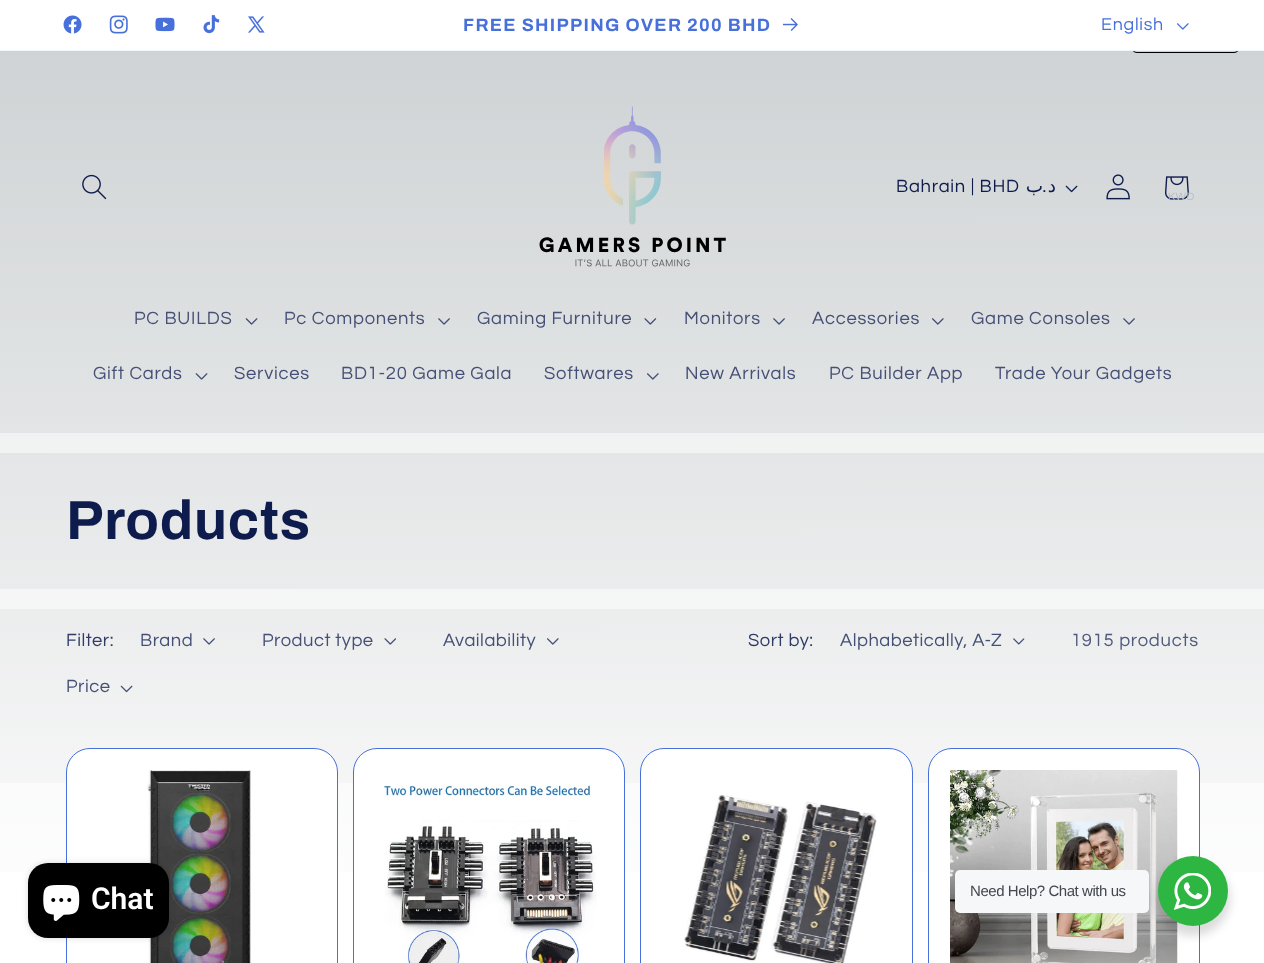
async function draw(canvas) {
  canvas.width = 1264;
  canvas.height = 963;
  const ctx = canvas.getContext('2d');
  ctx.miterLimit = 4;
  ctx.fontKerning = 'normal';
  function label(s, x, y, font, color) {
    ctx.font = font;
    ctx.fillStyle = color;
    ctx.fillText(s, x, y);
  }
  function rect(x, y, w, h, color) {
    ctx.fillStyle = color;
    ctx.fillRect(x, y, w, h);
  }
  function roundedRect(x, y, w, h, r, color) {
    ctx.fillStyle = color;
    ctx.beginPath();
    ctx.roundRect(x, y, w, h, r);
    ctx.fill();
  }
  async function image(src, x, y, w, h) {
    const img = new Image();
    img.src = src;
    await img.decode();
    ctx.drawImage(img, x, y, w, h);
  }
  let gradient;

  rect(0, 0, 1264, 963, '#fff');
  gradient = ctx.createLinearGradient(632, 0, 633, 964);
  gradient.addColorStop(0.04, '#52daec');
  gradient.addColorStop(0.04, '#e6e8e9');
  gradient.addColorStop(1, '#fff');
  gradient.addColorStop(1, '#e79e76');
  ctx.fillStyle = gradient;
  ctx.fillRect(0, 51, 1264, 821);
  gradient = ctx.createLinearGradient(632, 0, 633, 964);
  gradient.addColorStop(0.04, '#52daec');
  gradient.addColorStop(0.04, '#12262e1c');
  gradient.addColorStop(1, '#12262e00');
  gradient.addColorStop(1, '#e79e7600');
  gradient.addColorStop(1, '#e79e76');
  ctx.fillStyle = gradient;
  ctx.fillRect(0, 51, 1264, 382);
  ctx.beginPath();
  ctx.roundRect(1131.5, 8.5, 108, 44, 5.5);
  ctx.strokeStyle = '#000';
  ctx.stroke();
  rect(1131, 8, 109, 42, '#fff');
  rect(0, 50, 1264, 1, '#f0f4fc');
  await image('assets/img1.png', 63, 15, 19, 19);
  await image('assets/img2.png', 109, 15, 19, 19);
  await image('assets/img3.png', 155, 17, 20, 15);
  await image('assets/img4.png', 203, 15, 17, 19);
  await image('assets/img5.png', 248, 16, 17, 17);
  ctx.letterSpacing = '1.3px';
  label('FREE SHIPPING OVER 200 BHD', 463, 31, 'bold 17.9px Archivo', '#4770db');
  await image('assets/img6.png', 783, 18, 15, 13);
  ctx.letterSpacing = '0.75px';
  label('English', 1101, 30, '17.9px Questrial', '#4770db');
  await image('assets/img7.png', 1176, 23, 13, 7);
  await image('assets/img8.png', 82, 174, 25, 26);
  await image('assets/img9.png', 539, 106, 187, 161);
  label('Bahrain | BHD', 896, 192, '18.4px Questrial', '#0e1b4d');
  ctx.direction = 'rtl';
  label('ب', 1043, 192, '18.4px DejaVu Sans', '#0e1b4d');
  label('.', 1047, 192, '18.4px Questrial', '#0e1b4d');
  label('د', 1056, 192, '18.4px DejaVu Sans', '#0e1b4d');
  await image('assets/img10.png', 1065, 185, 13, 8);
  await image('assets/img11.png', 1106, 174, 24, 26);
  await image('assets/img12.png', 1165, 176, 24, 24);
  ctx.letterSpacing = '0.5px';
  ctx.direction = 'ltr';
  label('KWD', 1168, 200, '11px Questrial', '#b7bcc5');
  ctx.letterSpacing = '0.75px';
  label('PC BUILDS', 134, 324, '18.4px Questrial', '#465076');
  await image('assets/img13.png', 245, 318, 13, 7);
  label('Pc Components', 284, 324, '18.4px Questrial', '#465076');
  await image('assets/img14.png', 438, 318, 12, 7);
  label('Gaming Furniture', 477, 324, '18.4px Questrial', '#465076');
  await image('assets/img15.png', 644, 318, 13, 7);
  label('Monitors', 684, 324, '18.4px Questrial', '#465076');
  await image('assets/img14.png', 773, 318, 12, 7);
  label('Accessories', 812, 324, '18.4px Questrial', '#465076');
  await image('assets/img16.png', 932, 318, 12, 7);
  label('Game Consoles', 971, 324, '18.4px Questrial', '#465076');
  await image('assets/img17.png', 1123, 318, 12, 7);
  label('Gift Cards', 93, 379, '18.4px Questrial', '#465076');
  await image('assets/img18.png', 195, 373, 13, 7);
  label('Services', 234, 379, '18.4px Questrial', '#465076');
  label('BD1-20 Game Gala', 341, 379, '18.4px Questrial', '#465076');
  label('Softwares', 544, 379, '18.4px Questrial', '#465076');
  await image('assets/img19.png', 647, 373, 12, 7);
  label('New Arrivals', 685, 379, '18.4px Questrial', '#465076');
  label('PC Builder App', 829, 379, '18.4px Questrial', '#465076');
  label('Trade Your Gadgets', 995, 379, '18.4px Questrial', '#465076');
  gradient = ctx.createLinearGradient(632, 0, 633, 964);
  gradient.addColorStop(0.04, '#52daec');
  gradient.addColorStop(0.04, '#12262e1c');
  gradient.addColorStop(1, '#12262e00');
  gradient.addColorStop(1, '#e79e7600');
  gradient.addColorStop(1, '#e79e76');
  ctx.fillStyle = gradient;
  ctx.fillRect(0, 453, 1264, 136);
  label('Products', 66, 539, 'bold 55px Archivo', '#0e1b4d');
  gradient = ctx.createLinearGradient(632, 0, 633, 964);
  gradient.addColorStop(0.04, '#52daec');
  gradient.addColorStop(0.04, '#12262e1c');
  gradient.addColorStop(1, '#12262e00');
  gradient.addColorStop(1, '#e79e7600');
  gradient.addColorStop(1, '#e79e76');
  ctx.fillStyle = gradient;
  ctx.fillRect(0, 609, 1264, 174);
  ctx.letterSpacing = '0.5px';
  label('Filter:', 66, 646, '18.4px Questrial', '#303b65');
  label('Brand', 140, 646, '18.4px Questrial', '#465076');
  await image('assets/img20.png', 203, 638, 12, 7);
  label('Product type', 262, 646, '18.4px Questrial', '#465076');
  await image('assets/img21.png', 384, 638, 12, 7);
  label('Availability', 443, 646, '18.4px Questrial', '#465076');
  await image('assets/img22.png', 547, 638, 12, 7);
  label('Price', 66, 692, '18.4px Questrial', '#465076');
  await image('assets/img23.png', 120, 685, 13, 8);
  label('Sort by:', 748, 646, '18.4px Questrial', '#303b65');
  label('Alphabetically, A-Z', 840, 646, '18.4px Questrial', '#465076');
  await image('assets/img24.png', 1013, 638, 12, 7);
  ctx.letterSpacing = '0.75px';
  label('1915 products', 1071, 646, '18.4px Questrial', '#515a7e');
  ctx.fillStyle = '#fff';
  ctx.beginPath();
  ctx.roundRect(66.5, 748.5, 271, 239, 23.5);
  ctx.fill();
  ctx.strokeStyle = '#4770db';
  ctx.stroke();
  await image('assets/img25.png', 147, 770, 104, 193);
  ctx.beginPath();
  ctx.roundRect(353.5, 748.5, 271, 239, 23.5);
  ctx.fill();
  ctx.stroke();
  await image('assets/img26.png', 384, 785, 213, 178);
  ctx.beginPath();
  ctx.roundRect(640.5, 748.5, 272, 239, 23.5);
  ctx.fill();
  ctx.stroke();
  await image('assets/img27.png', 684, 795, 193, 168);
  ctx.beginPath();
  ctx.roundRect(928.5, 748.5, 271, 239, 23.5);
  ctx.fill();
  ctx.stroke();
  await image('assets/img28.png', 950, 770, 228, 193);
  ctx.fillStyle = '#00000026';
  ctx.filter = 'blur(3px)';
  ctx.beginPath();
  ctx.roundRect(28, 863, 141, 75, 20);
  ctx.fill();
  ctx.filter = 'none';
  roundedRect(28, 863, 141, 75, 20, '#000');
  await image('assets/img29.png', 43, 885, 37, 36);
  ctx.letterSpacing = '0px';
  label('Chat', 91, 909, '600 30px Roboto', '#fff');
  ctx.fillStyle = '#00000024';
  ctx.filter = 'blur(5px)';
  ctx.beginPath();
  ctx.roundRect(1155, 861, 75, 75, 37.5);
  ctx.fill();
  ctx.filter = 'none';
  roundedRect(955, 870, 194, 43, 5, '#f5f7f9');
  ctx.letterSpacing = '-0.45px';
  label('Need Help? Chat with us', 970, 896, '15px Liberation Sans', '#43474e');
  ctx.fillStyle = '#2db742';
  ctx.beginPath();
  ctx.arc(1193, 891, 35, 0, 2 * Math.PI);
  ctx.fill();
  await image('assets/img30.png', 1174, 873, 37, 37);
}

draw(document.querySelector('canvas'));
